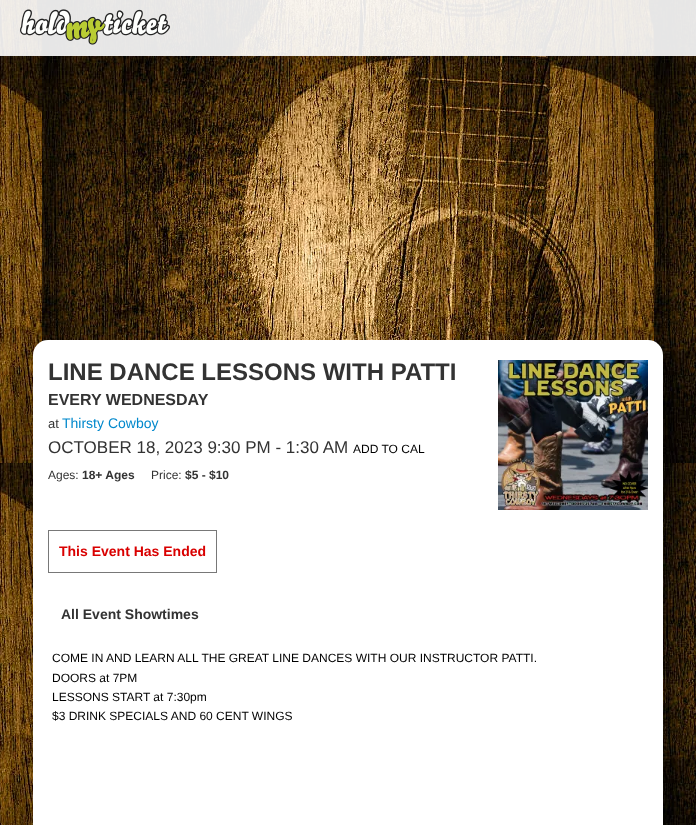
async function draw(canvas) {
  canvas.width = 696;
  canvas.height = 825;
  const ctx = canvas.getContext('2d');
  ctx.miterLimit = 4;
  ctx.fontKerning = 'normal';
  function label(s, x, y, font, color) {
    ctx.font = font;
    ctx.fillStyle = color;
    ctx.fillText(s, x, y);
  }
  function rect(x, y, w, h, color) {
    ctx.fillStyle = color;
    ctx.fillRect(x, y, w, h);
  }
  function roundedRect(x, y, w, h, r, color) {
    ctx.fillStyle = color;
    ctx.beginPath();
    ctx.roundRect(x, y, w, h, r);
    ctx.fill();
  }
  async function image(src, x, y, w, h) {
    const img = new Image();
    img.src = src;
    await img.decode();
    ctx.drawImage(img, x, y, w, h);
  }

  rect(0, 0, 696, 825, '#fff');
  await image('assets/img1.png', 0, 0, 696, 825);
  rect(0, 0, 696, 56, '#ffffffe6');
  await image('assets/img2.png', 20, 9, 150, 36);
  roundedRect(33, 340, 630, 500, 15, '#fff');
  label('LINE DANCE LESSONS WITH PATTI', 48, 380, 'bold 24px Liberation Sans', '#333');
  label('EVERY WEDNESDAY', 48, 405, 'bold 16px Liberation Sans', '#333');
  label('at', 48, 428, '13px Liberation Sans', '#333');
  label('Thirsty Cowboy', 62, 428, '14px Liberation Sans', '#08c');
  label('OCTOBER 18, 2023 9:30 PM - 1:30 AM', 48, 453, '17px Liberation Sans', '#333');
  label('ADD TO CAL', 353, 453, '12px Liberation Sans', '#000');
  label('Ages:', 48, 479, '12px Liberation Sans', '#333');
  label('18+ Ages', 82, 479, 'bold 12px Liberation Sans', '#333');
  label('Price:', 151, 479, '12px Liberation Sans', '#333');
  label('$5 - $10', 185, 479, 'bold 12px Liberation Sans', '#333');
  await image('assets/img3.png', 498, 360, 150, 150);
  ctx.strokeStyle = '#787878';
  ctx.strokeRect(48.5, 530.5, 168, 42);
  label('This Event Has Ended', 59, 556, 'bold 14px Liberation Sans', '#d90000');
  label('All Event Showtimes', 61, 619, 'bold 14px Liberation Sans', '#333');
  label('COME IN AND LEARN ALL THE GREAT LINE DANCES WITH OUR INSTRUCTOR PATTI.', 52, 662, '12px Liberation Sans', '#000');
  label('DOORS at 7PM', 52, 682, '12px Liberation Sans', '#000');
  label('LESSONS START at 7:30pm', 52, 701, '12px Liberation Sans', '#000');
  label('$3 DRINK SPECIALS AND 60 CENT WINGS', 52, 720, '12px Liberation Sans', '#000');
}

draw(document.querySelector('canvas'));
